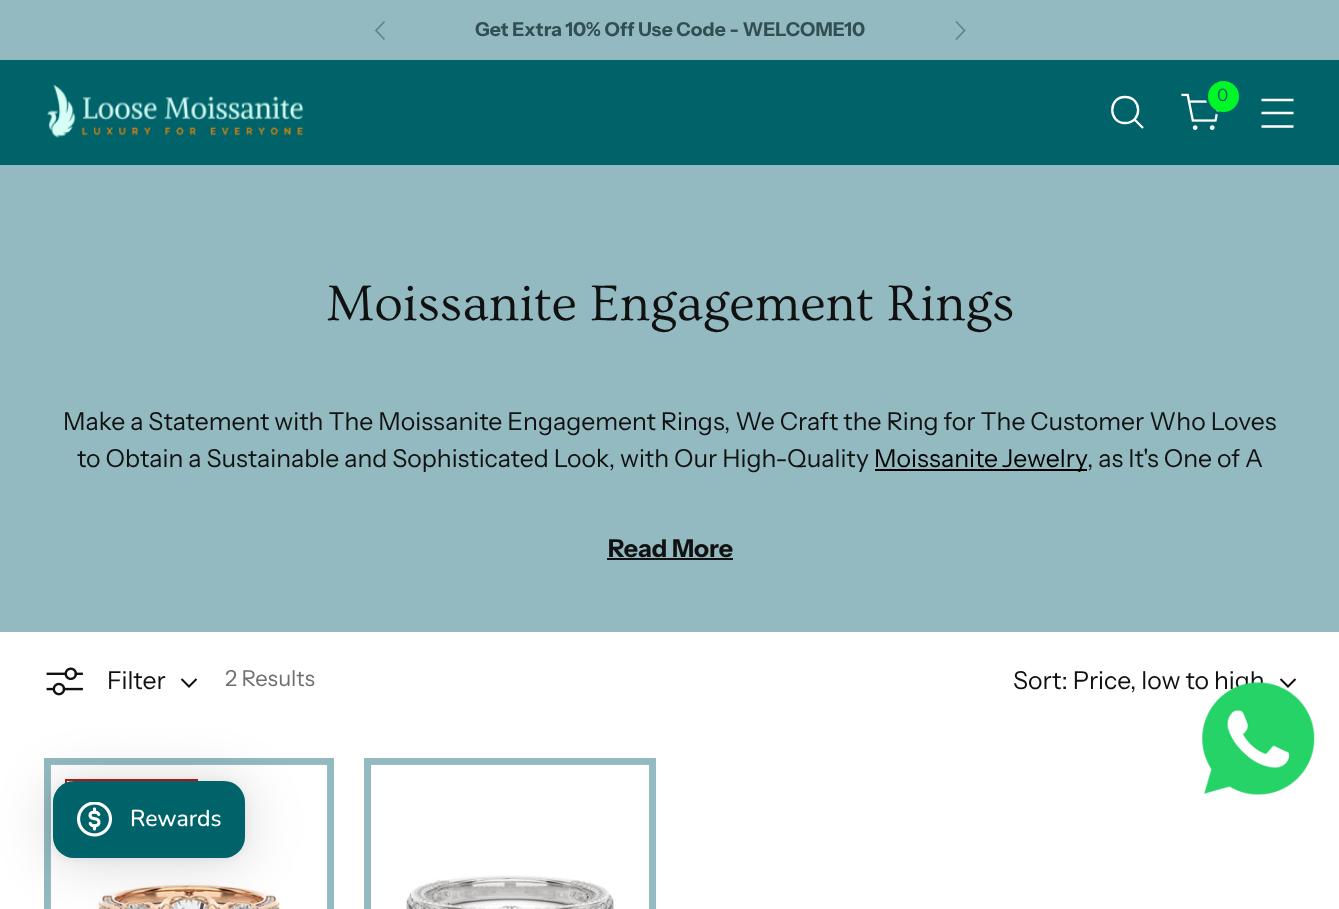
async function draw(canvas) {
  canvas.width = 1339;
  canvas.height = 909;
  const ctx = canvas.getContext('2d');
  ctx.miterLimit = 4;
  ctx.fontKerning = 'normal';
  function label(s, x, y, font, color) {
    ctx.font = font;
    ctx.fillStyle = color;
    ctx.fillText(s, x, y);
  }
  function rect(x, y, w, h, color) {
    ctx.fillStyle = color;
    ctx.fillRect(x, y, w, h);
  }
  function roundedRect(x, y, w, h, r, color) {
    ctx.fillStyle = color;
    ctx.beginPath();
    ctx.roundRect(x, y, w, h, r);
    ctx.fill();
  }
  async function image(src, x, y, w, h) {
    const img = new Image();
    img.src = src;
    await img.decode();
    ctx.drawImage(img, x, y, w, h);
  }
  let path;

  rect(0, 0, 1339, 909, '#fff');
  rect(0, 0, 1339, 60, '#92bac0');
  path = new Path2D('M384.5 21.5L376 30.5L384.5 39.5');
  ctx.strokeStyle = '#62848a';
  ctx.lineWidth = 1.8;
  ctx.stroke(path);
  path = new Path2D('M956 39.5L964.5 30.5L956 21.5');
  ctx.stroke(path);
  label('Get Extra 10% Off Use Code - WELCOME10', 475, 36, 'bold 19.25px Instrument Sans', '#314e53');
  rect(0, 60, 1339, 105, '#006369');
  await image('assets/img1.png', 47, 84, 257, 54);
  path = new Path2D('M1125 123C1142.5 123 1142.5 97 1125 97C1108 97 1108 123 1125 123Z');
  ctx.strokeStyle = '#fff';
  ctx.lineWidth = 2.3;
  ctx.lineCap = 'round';
  ctx.stroke(path);
  path = new Path2D('M1134.5 119.5L1143 128');
  ctx.lineCap = 'butt';
  ctx.stroke(path);
  await image('assets/img2.png', 1181, 93, 38, 37);
  ctx.beginPath();
  ctx.arc(1224.5, 97.5, 17, 0, 2 * Math.PI);
  ctx.strokeStyle = '#006369';
  ctx.lineWidth = 3;
  ctx.stroke();
  ctx.fillStyle = '#00f727';
  ctx.beginPath();
  ctx.arc(1223.5, 96.5, 15.5, 0, 2 * Math.PI);
  ctx.fill();
  label('0', 1217, 101, '17px Instrument Sans', '#006369');
  path = new Path2D('M1261.5 113H1293.5M1261.5 100H1293.5M1261.5 126.5H1293.5');
  ctx.strokeStyle = '#fff';
  ctx.lineWidth = 2.3;
  ctx.stroke(path);
  rect(0, 165, 1339, 467, '#92bac0');
  label('Moissanite Engagement Rings', 326, 320, '52.25px Ovo', '#111');
  label('Make a Statement with The Moissanite Engagement Rings, We Craft the Ring for The Customer Who Loves', 63, 430, '24.8px Instrument Sans', '#111');
  label('to Obtain a Sustainable and Sophisticated Look, with Our High-Quality', 77, 467, '24.8px Instrument Sans', '#111');
  rect(875, 469, 212, 2, '#000');
  ctx.wordSpacing = '-1px';
  label('Moissanite Jewelry', 874, 467, '24.8px Instrument Sans', '#000');
  ctx.wordSpacing = '0px';
  label(', as It\'s One of A', 1087, 467, '24.8px Instrument Sans', '#111');
  label('Read More', 608, 557, 'bold 24.8px Instrument Sans', '#111');
  rect(607, 558, 126, 2, '#111');
  await image('assets/img3.png', 46, 667, 37, 29);
  label('Filter', 107, 689, '24.8px Instrument Sans', '#111');
  path = new Path2D('M181.5 679L189 686.5L196.5 679');
  ctx.strokeStyle = '#111';
  ctx.lineWidth = 2;
  ctx.stroke(path);
  label('2 Results', 225, 686, '22px Instrument Sans', '#707070');
  label('Sort: Price, low to high', 1013, 689, '24.8px Instrument Sans', '#111');
  path = new Path2D('M1280.5 679L1288 686.5L1295.5 679');
  ctx.stroke(path);
  ctx.strokeStyle = '#92bac0';
  ctx.lineWidth = 7;
  ctx.strokeRect(47.5, 761.5, 283, 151);
  await image('assets/img4.png', 50, 764, 278, 145);
  ctx.strokeStyle = '#c31818';
  ctx.lineWidth = 2;
  ctx.strokeRect(66, 780, 131, 28);
  ctx.strokeStyle = '#92bac0';
  ctx.lineWidth = 7;
  ctx.strokeRect(367.5, 761.5, 285, 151);
  await image('assets/img5.png', 371, 764, 279, 145);
  await image('assets/img6.png', 1202, 682, 113, 113);
  ctx.fillStyle = '#00000029';
  ctx.filter = 'blur(28px)';
  ctx.beginPath();
  ctx.roundRect(53, 784, 192, 77, 21);
  ctx.fill();
  ctx.filter = 'none';
  ctx.fillStyle = '#0000000f';
  ctx.filter = 'blur(5px)';
  ctx.beginPath();
  ctx.roundRect(53, 782, 192, 77, 21);
  ctx.fill();
  ctx.filter = 'none';
  roundedRect(53, 781, 192, 77, 21, '#006369');
  await image('assets/img7.png', 77, 802, 35, 35);
  label('Rewards', 130, 826, '500 23px Nunito', '#fff');
}

draw(document.querySelector('canvas'));
